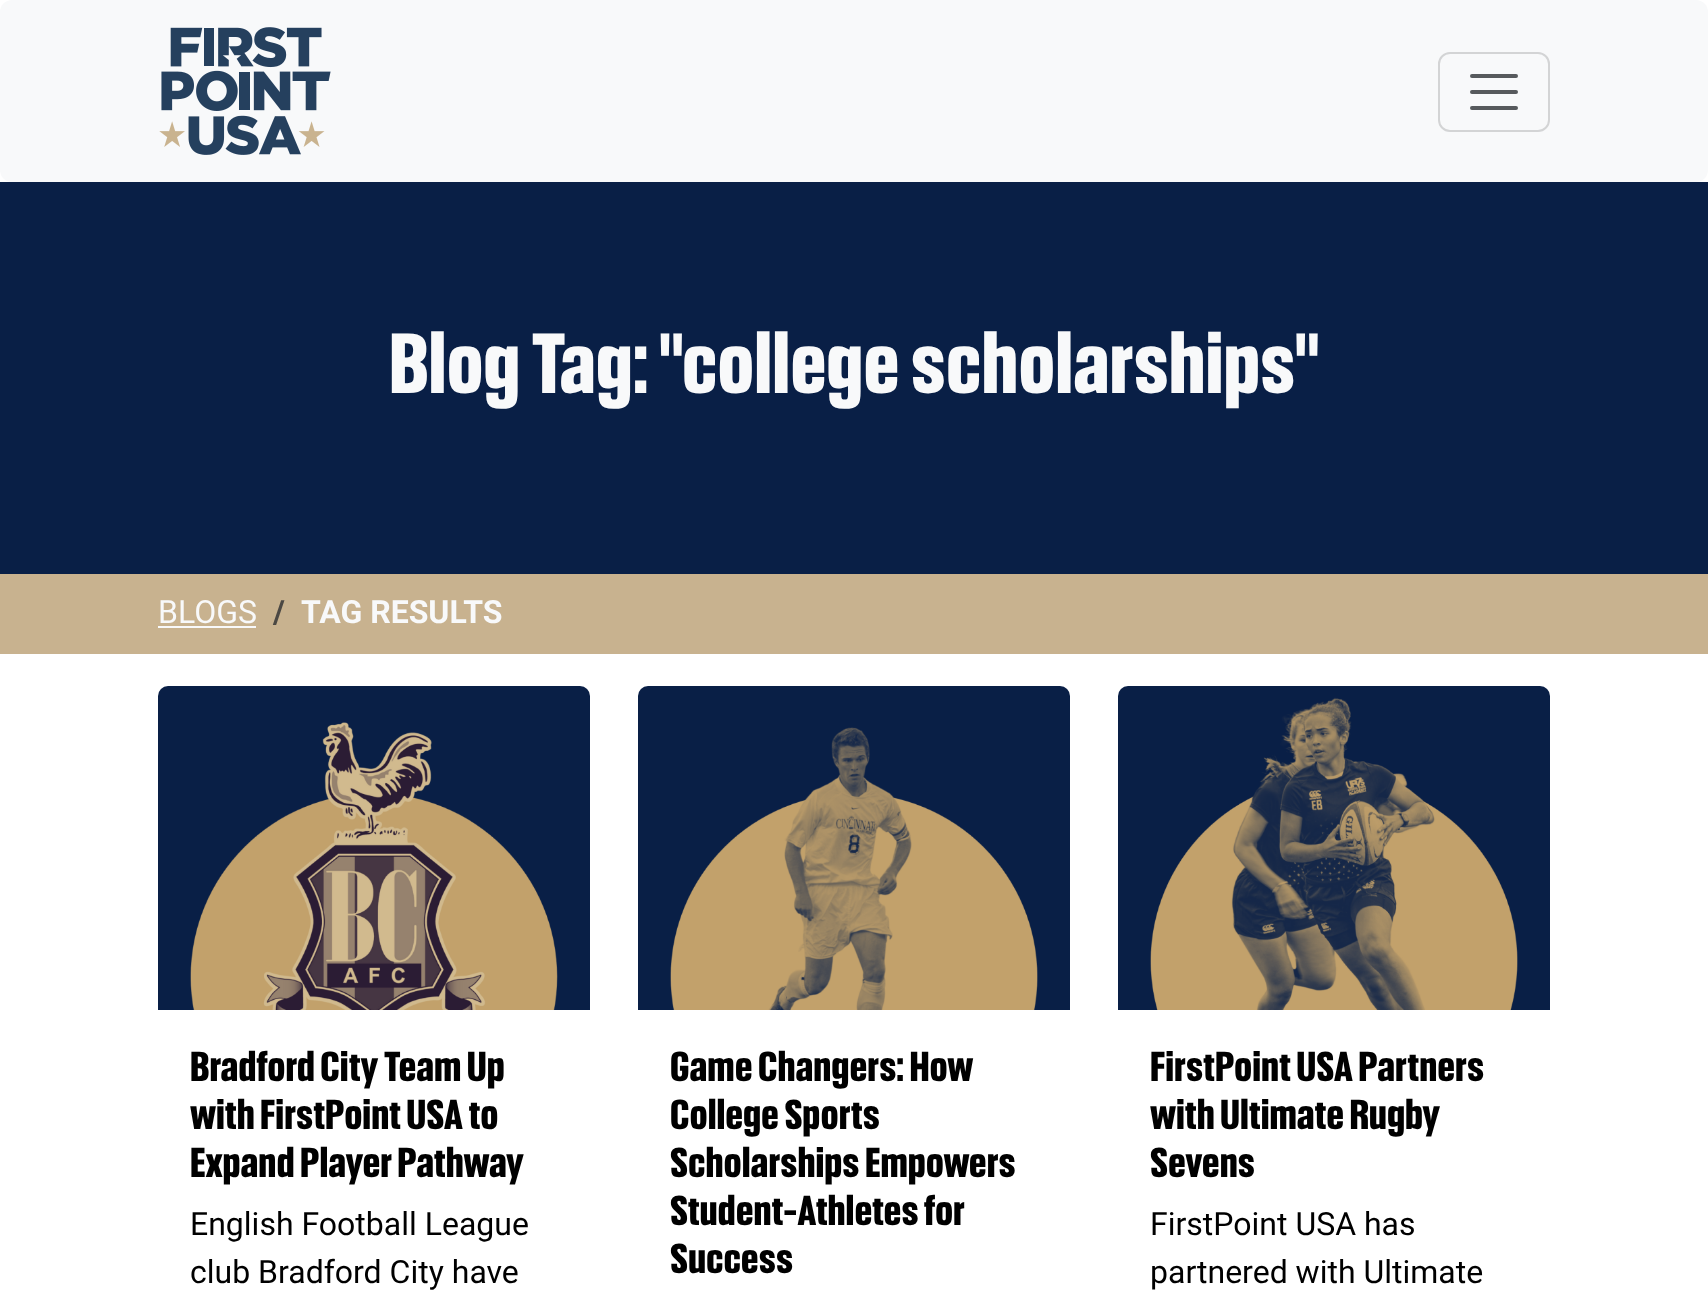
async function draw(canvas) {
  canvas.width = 1708;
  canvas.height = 1303;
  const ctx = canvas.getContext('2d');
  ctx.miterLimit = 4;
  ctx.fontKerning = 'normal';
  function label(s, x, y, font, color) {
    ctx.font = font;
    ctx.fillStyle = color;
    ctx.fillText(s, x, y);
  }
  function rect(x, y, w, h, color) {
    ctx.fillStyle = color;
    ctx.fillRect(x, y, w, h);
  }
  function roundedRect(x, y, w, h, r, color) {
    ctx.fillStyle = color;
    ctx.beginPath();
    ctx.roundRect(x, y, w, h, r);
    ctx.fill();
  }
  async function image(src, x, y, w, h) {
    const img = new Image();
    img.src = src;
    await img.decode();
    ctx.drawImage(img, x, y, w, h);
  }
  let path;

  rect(0, 0, 1708, 1303, '#fff');
  roundedRect(0, 0, 1708, 182, 12, '#f8f9fa');
  await image('assets/img1.png', 159, 27, 172, 128);
  ctx.beginPath();
  ctx.roundRect(1439, 53, 110, 78, 11);
  ctx.strokeStyle = '#d3d4d5';
  ctx.lineWidth = 2;
  ctx.stroke();
  path = new Path2D('M1472 76H1516M1472 92H1516M1472 108H1516');
  ctx.strokeStyle = '#575a5d';
  ctx.lineWidth = 4;
  ctx.lineCap = 'round';
  ctx.stroke(path);
  rect(0, 182, 1708, 392, '#091f46');
  label('Blog Tag: "college scholarships"', 389, 393, 'bold 81.5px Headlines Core', '#f8f9fa');
  rect(0, 574, 1708, 80, '#c8b28f');
  label('BLOGS', 158, 623, '32px Roboto', '#f8f9fa');
  rect(158, 626, 98, 2, '#f8f9fa');
  label('/', 273, 623, 'bold 32px Roboto', '#4b4843');
  label('TAG RESULTS', 301, 623, 'bold 32px Roboto', '#f8f9fa');
  await image('assets/img2.png', 158, 686, 432, 324);
  label('Bradford City Team Up', 190, 1081, 'bold 40px Headlines Core', '#000');
  label('with FirstPoint USA to', 190, 1129, 'bold 40px Headlines Core', '#000');
  label('Expand Player Pathway', 190, 1177, 'bold 40px Headlines Core', '#000');
  label('English Football League', 190, 1235, '32px Roboto', '#000');
  label('club Bradford City have', 190, 1283, '32px Roboto', '#000');
  await image('assets/img3.png', 638, 686, 432, 324);
  label('Game Changers: How', 670, 1081, 'bold 40px Headlines Core', '#000');
  label('College Sports', 670, 1129, 'bold 40px Headlines Core', '#000');
  label('Scholarships Empowers', 670, 1177, 'bold 40px Headlines Core', '#000');
  label('Student-Athletes for', 670, 1225, 'bold 40px Headlines Core', '#000');
  label('Success', 670, 1273, 'bold 40px Headlines Core', '#000');
  await image('assets/img4.png', 1118, 686, 432, 324);
  label('FirstPoint USA Partners', 1150, 1081, 'bold 40px Headlines Core', '#000');
  label('with Ultimate Rugby', 1150, 1129, 'bold 40px Headlines Core', '#000');
  label('Sevens', 1150, 1177, 'bold 40px Headlines Core', '#000');
  label('FirstPoint USA has', 1150, 1235, '32px Roboto', '#000');
  label('partnered with Ultimate', 1150, 1283, '32px Roboto', '#000');
}

draw(document.querySelector('canvas'));
